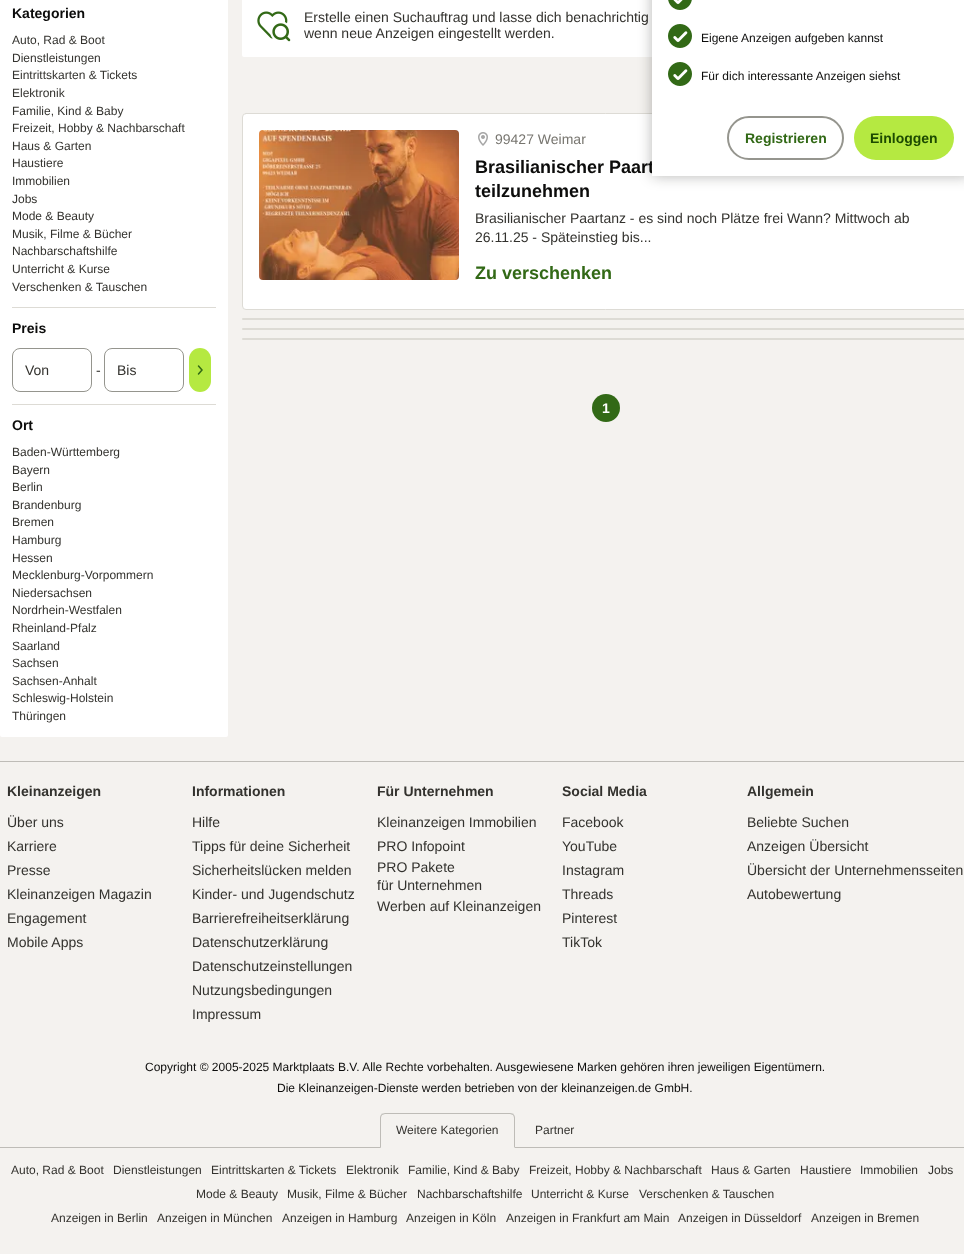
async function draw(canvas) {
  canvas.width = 964;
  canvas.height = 1254;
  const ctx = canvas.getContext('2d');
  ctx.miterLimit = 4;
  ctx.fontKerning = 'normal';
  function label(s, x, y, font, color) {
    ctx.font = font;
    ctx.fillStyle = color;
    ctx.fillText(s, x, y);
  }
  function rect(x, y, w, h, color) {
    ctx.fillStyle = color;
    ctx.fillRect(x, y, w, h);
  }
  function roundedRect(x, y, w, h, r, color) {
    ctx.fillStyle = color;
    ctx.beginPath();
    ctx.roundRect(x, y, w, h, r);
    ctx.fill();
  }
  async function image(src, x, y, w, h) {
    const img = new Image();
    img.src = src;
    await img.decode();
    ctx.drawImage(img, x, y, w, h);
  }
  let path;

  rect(0, 0, 964, 1254, '#f4f2ef');
  roundedRect(0, -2, 228, 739, 2, '#fff');
  label('Kategorien', 12, 18, 'bold 14px Liberation Sans', '#0c0c0b');
  label('Auto, Rad & Boot', 12, 44, '12px Liberation Sans', '#33322e');
  label('Dienstleistungen', 12, 62, '12px Liberation Sans', '#33322e');
  label('Eintrittskarten & Tickets', 12, 79, '12px Liberation Sans', '#33322e');
  label('Elektronik', 12, 97, '12px Liberation Sans', '#33322e');
  label('Familie, Kind & Baby', 12, 115, '12px Liberation Sans', '#33322e');
  label('Freizeit, Hobby & Nachbarschaft', 12, 132, '12px Liberation Sans', '#33322e');
  label('Haus & Garten', 12, 150, '12px Liberation Sans', '#33322e');
  label('Haustiere', 12, 167, '12px Liberation Sans', '#33322e');
  label('Immobilien', 12, 185, '12px Liberation Sans', '#33322e');
  label('Jobs', 12, 203, '12px Liberation Sans', '#33322e');
  label('Mode & Beauty', 12, 220, '12px Liberation Sans', '#33322e');
  label('Musik, Filme & Bücher', 12, 238, '12px Liberation Sans', '#33322e');
  label('Nachbarschaftshilfe', 12, 255, '12px Liberation Sans', '#33322e');
  label('Unterricht & Kurse', 12, 273, '12px Liberation Sans', '#33322e');
  label('Verschenken & Tauschen', 12, 291, '12px Liberation Sans', '#33322e');
  rect(12, 307, 204, 1, '#dddbd5');
  label('Preis', 12, 333, 'bold 14px Liberation Sans', '#0c0c0b');
  ctx.beginPath();
  ctx.roundRect(12.5, 348.5, 79, 43, 7.5);
  ctx.strokeStyle = '#95958e';
  ctx.stroke();
  label('Von', 25, 375, '14px Liberation Sans', '#33322e');
  label('-', 96, 375, '14px Liberation Sans', '#33322e');
  ctx.beginPath();
  ctx.roundRect(104.5, 348.5, 79, 43, 7.5);
  ctx.stroke();
  label('Bis', 117, 375, '14px Liberation Sans', '#33322e');
  roundedRect(189, 348, 22, 44, 11, '#b5e941');
  path = new Path2D('M198.5 366L202 370L198.5 374');
  ctx.strokeStyle = '#326916';
  ctx.lineWidth = 1.5;
  ctx.lineCap = 'round';
  ctx.stroke(path);
  rect(12, 404, 204, 1, '#dddbd5');
  label('Ort', 12, 430, 'bold 14px Liberation Sans', '#0c0c0b');
  label('Baden-Württemberg', 12, 456, '12px Liberation Sans', '#33322e');
  label('Bayern', 12, 474, '12px Liberation Sans', '#33322e');
  label('Berlin', 12, 491, '12px Liberation Sans', '#33322e');
  label('Brandenburg', 12, 509, '12px Liberation Sans', '#33322e');
  label('Bremen', 12, 526, '12px Liberation Sans', '#33322e');
  label('Hamburg', 12, 544, '12px Liberation Sans', '#33322e');
  label('Hessen', 12, 562, '12px Liberation Sans', '#33322e');
  label('Mecklenburg-Vorpommern', 12, 579, '12px Liberation Sans', '#33322e');
  label('Niedersachsen', 12, 597, '12px Liberation Sans', '#33322e');
  label('Nordrhein-Westfalen', 12, 614, '12px Liberation Sans', '#33322e');
  label('Rheinland-Pfalz', 12, 632, '12px Liberation Sans', '#33322e');
  label('Saarland', 12, 650, '12px Liberation Sans', '#33322e');
  label('Sachsen', 12, 667, '12px Liberation Sans', '#33322e');
  label('Sachsen-Anhalt', 12, 685, '12px Liberation Sans', '#33322e');
  label('Schleswig-Holstein', 12, 702, '12px Liberation Sans', '#33322e');
  label('Thüringen', 12, 720, '12px Liberation Sans', '#33322e');
  roundedRect(242, -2, 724, 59, 2, '#fff');
  await image('assets/img1.png', 257, 11, 34, 31);
  label('Erstelle einen Suchauftrag und lasse dich benachrichtig', 304, 22, '14px Liberation Sans', '#33322e');
  label('wenn neue Anzeigen eingestellt werden.', 304, 38, '14px Liberation Sans', '#33322e');
  ctx.fillStyle = '#fff';
  ctx.beginPath();
  ctx.roundRect(242.5, 113.5, 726, 196, 3.5);
  ctx.fill();
  ctx.strokeStyle = '#dddbd5';
  ctx.lineWidth = 1;
  ctx.stroke();
  await image('assets/img2.png', 259, 130, 200, 150);
  await image('assets/img3.png', 478, 132, 10, 14);
  label('99427 Weimar', 495, 144, '14px Liberation Sans', '#77756f');
  label('Brasilianischer Paart', 475, 173, 'bold 18px Liberation Sans', '#0c0c0b');
  label('teilzunehmen', 475, 197, 'bold 18px Liberation Sans', '#0c0c0b');
  label('Brasilianischer Paartanz - es sind noch Plätze frei Wann? Mittwoch ab', 475, 223, '14px Liberation Sans', '#33322e');
  label('26.11.25 - Späteinstieg bis...', 475, 242, '14px Liberation Sans', '#33322e');
  label('Zu verschenken', 475, 279, 'bold 18px Liberation Sans', '#326916');
  roundedRect(242, 318, 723, 2, 1, '#dddbd5');
  roundedRect(242, 328, 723, 2, 1, '#dddbd5');
  roundedRect(242, 338, 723, 2, 1, '#dddbd5');
  ctx.fillStyle = '#326916';
  ctx.beginPath();
  ctx.arc(606, 408, 14, 0, 2 * Math.PI);
  ctx.fill();
  label('1', 602, 413, 'bold 14px Liberation Sans', '#fff');
  rect(0, 761, 964, 1, '#bebcb7');
  label('Kleinanzeigen', 7, 796, 'bold 14px Liberation Sans', '#33322e');
  label('Über uns', 7, 827, '14px Liberation Sans', '#33322e');
  label('Karriere', 7, 851, '14px Liberation Sans', '#33322e');
  label('Presse', 7, 875, '14px Liberation Sans', '#33322e');
  label('Kleinanzeigen Magazin', 7, 899, '14px Liberation Sans', '#33322e');
  label('Engagement', 7, 923, '14px Liberation Sans', '#33322e');
  label('Mobile Apps', 7, 947, '14px Liberation Sans', '#33322e');
  label('Informationen', 192, 796, 'bold 14px Liberation Sans', '#33322e');
  label('Hilfe', 192, 827, '14px Liberation Sans', '#33322e');
  label('Tipps für deine Sicherheit', 192, 851, '14px Liberation Sans', '#33322e');
  label('Sicherheitslücken melden', 192, 875, '14px Liberation Sans', '#33322e');
  label('Kinder- und Jugendschutz', 192, 899, '14px Liberation Sans', '#33322e');
  label('Barrierefreiheitserklärung', 192, 923, '14px Liberation Sans', '#33322e');
  label('Datenschutzerklärung', 192, 947, '14px Liberation Sans', '#33322e');
  label('Datenschutzeinstellungen', 192, 971, '14px Liberation Sans', '#33322e');
  label('Nutzungsbedingungen', 192, 995, '14px Liberation Sans', '#33322e');
  label('Impressum', 192, 1019, '14px Liberation Sans', '#33322e');
  label('Für Unternehmen', 377, 796, 'bold 14px Liberation Sans', '#33322e');
  label('Kleinanzeigen Immobilien', 377, 827, '14px Liberation Sans', '#33322e');
  label('PRO Infopoint', 377, 851, '14px Liberation Sans', '#33322e');
  label('PRO Pakete', 377, 872, '14px Liberation Sans', '#33322e');
  label('für Unternehmen', 377, 890, '14px Liberation Sans', '#33322e');
  label('Werben auf Kleinanzeigen', 377, 911, '14px Liberation Sans', '#33322e');
  label('Social Media', 562, 796, 'bold 14px Liberation Sans', '#33322e');
  label('Facebook', 562, 827, '14px Liberation Sans', '#33322e');
  label('YouTube', 562, 851, '14px Liberation Sans', '#33322e');
  label('Instagram', 562, 875, '14px Liberation Sans', '#33322e');
  label('Threads', 562, 899, '14px Liberation Sans', '#33322e');
  label('Pinterest', 562, 923, '14px Liberation Sans', '#33322e');
  label('TikTok', 562, 947, '14px Liberation Sans', '#33322e');
  label('Allgemein', 747, 796, 'bold 14px Liberation Sans', '#33322e');
  label('Beliebte Suchen', 747, 827, '14px Liberation Sans', '#33322e');
  label('Anzeigen Übersicht', 747, 851, '14px Liberation Sans', '#33322e');
  label('Übersicht der Unternehmensseiten', 747, 875, '14px Liberation Sans', '#33322e');
  label('Autobewertung', 747, 899, '14px Liberation Sans', '#33322e');
  label('Copyright © 2005-2025 Marktplaats B.V. Alle Rechte vorbehalten. Ausgewiesene Marken gehören ihren jeweiligen Eigentümern.', 145, 1071, '12px Liberation Sans', '#0c0c0b');
  label('Die Kleinanzeigen-Dienste werden betrieben von der kleinanzeigen.de GmbH.', 277, 1092, '12px Liberation Sans', '#0c0c0b');
  rect(0, 1147, 964, 1, '#bebcb7');
  path = new Path2D('M385 1113C384 1113 382 1114 381 1114L382 1115L385 1114H510L513 1115L514 1114C513 1114 512 1113 510 1113Z');
  ctx.fill(path);
  path = new Path2D('M515 1148V1118C515 1116.5 514.5 1115 513.5 1114.5L513 1115C513.5 1116 514 1117 514 1118V1147Z');
  ctx.fill(path);
  ctx.fillStyle = '#f4f2ef';
  path = new Path2D('M515 1148L514 1147H381L380 1148Z');
  ctx.fill(path);
  ctx.fillStyle = '#bebcb7';
  path = new Path2D('M380 1148L381 1147V1118C381 1117 381.5 1116 382 1115L381.5 1114.5C380.5 1115 380 1116.5 380 1118Z');
  ctx.fill(path);
  label('Weitere Kategorien', 396, 1134, '12px Liberation Sans', '#33322e');
  label('Partner', 535, 1134, '12px Liberation Sans', '#33322e');
  label('Auto, Rad & Boot', 11, 1174, '12px Liberation Sans', '#33322e');
  label('Dienstleistungen', 113, 1174, '12px Liberation Sans', '#33322e');
  label('Eintrittskarten & Tickets', 211, 1174, '12px Liberation Sans', '#33322e');
  label('Elektronik', 346, 1174, '12px Liberation Sans', '#33322e');
  label('Familie, Kind & Baby', 408, 1174, '12px Liberation Sans', '#33322e');
  label('Freizeit, Hobby & Nachbarschaft', 529, 1174, '12px Liberation Sans', '#33322e');
  label('Haus & Garten', 711, 1174, '12px Liberation Sans', '#33322e');
  label('Haustiere', 800, 1174, '12px Liberation Sans', '#33322e');
  label('Immobilien', 860, 1174, '12px Liberation Sans', '#33322e');
  label('Jobs', 928, 1174, '12px Liberation Sans', '#33322e');
  label('Mode & Beauty', 196, 1198, '12px Liberation Sans', '#33322e');
  label('Musik, Filme & Bücher', 287, 1198, '12px Liberation Sans', '#33322e');
  label('Nachbarschaftshilfe', 417, 1198, '12px Liberation Sans', '#33322e');
  label('Unterricht & Kurse', 531, 1198, '12px Liberation Sans', '#33322e');
  label('Verschenken & Tauschen', 639, 1198, '12px Liberation Sans', '#33322e');
  label('Anzeigen in Berlin', 51, 1222, '12px Liberation Sans', '#33322e');
  label('Anzeigen in München', 157, 1222, '12px Liberation Sans', '#33322e');
  label('Anzeigen in Hamburg', 282, 1222, '12px Liberation Sans', '#33322e');
  label('Anzeigen in Köln', 406, 1222, '12px Liberation Sans', '#33322e');
  label('Anzeigen in Frankfurt am Main', 506, 1222, '12px Liberation Sans', '#33322e');
  label('Anzeigen in Düsseldorf', 678, 1222, '12px Liberation Sans', '#33322e');
  label('Anzeigen in Bremen', 811, 1222, '12px Liberation Sans', '#33322e');
  ctx.fillStyle = '#0c0c0b4d';
  ctx.filter = 'blur(7px)';
  ctx.beginPath();
  ctx.rect(652, -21, 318, 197);
  ctx.fill();
  ctx.filter = 'none';
  rect(652, 0, 312, 176, '#fff');
  await image('assets/img4.png', 668, 0, 24, 10);
  await image('assets/img5.png', 668, 24, 24, 24);
  label('Eigene Anzeigen aufgeben kannst', 701, 42, '12px Liberation Sans', '#0c0c0b');
  await image('assets/img5.png', 668, 62, 24, 24);
  label('Für dich interessante Anzeigen siehst', 701, 80, '12px Liberation Sans', '#0c0c0b');
  ctx.beginPath();
  ctx.roundRect(728, 117, 115, 42, 21);
  ctx.strokeStyle = '#95958e';
  ctx.lineWidth = 2;
  ctx.stroke();
  label('Registrieren', 745, 143, 'bold 14px Liberation Sans', '#326916');
  roundedRect(854, 116, 100, 44, 22, '#b5e941');
  label('Einloggen', 870, 143, 'bold 14px Liberation Sans', '#1d4b00');
}

draw(document.querySelector('canvas'));
